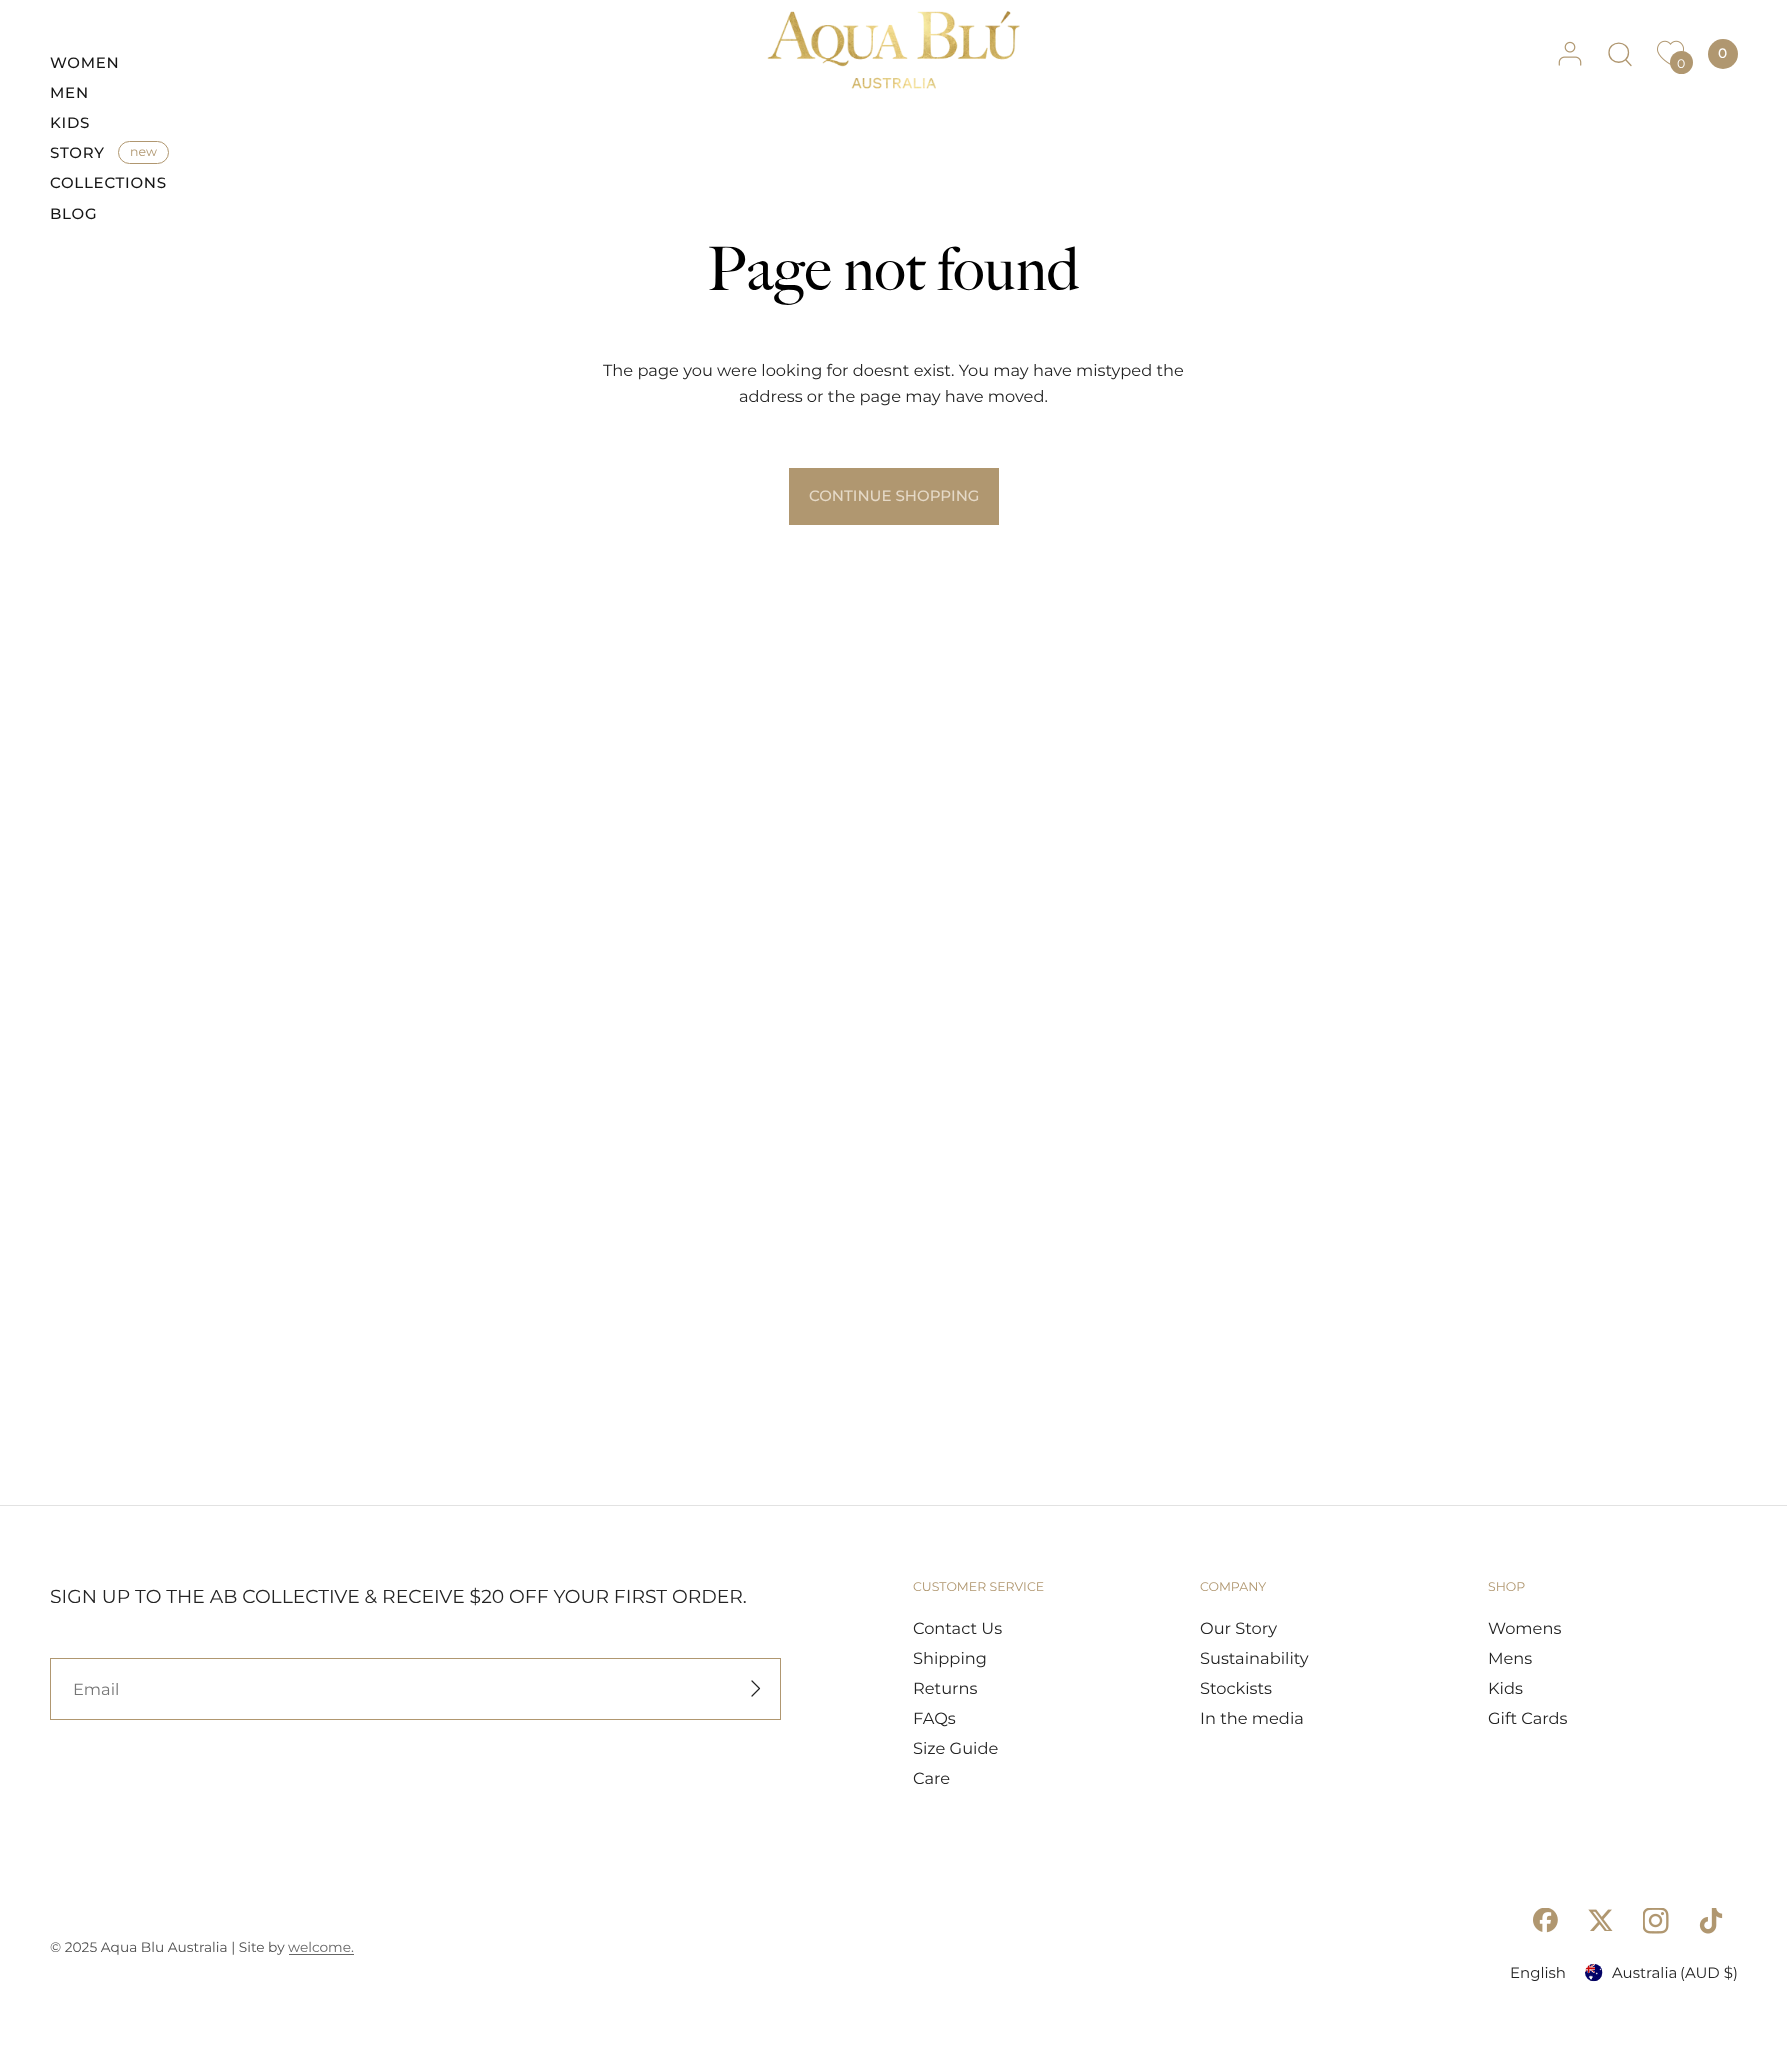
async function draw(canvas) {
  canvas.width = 1787;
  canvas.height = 2066;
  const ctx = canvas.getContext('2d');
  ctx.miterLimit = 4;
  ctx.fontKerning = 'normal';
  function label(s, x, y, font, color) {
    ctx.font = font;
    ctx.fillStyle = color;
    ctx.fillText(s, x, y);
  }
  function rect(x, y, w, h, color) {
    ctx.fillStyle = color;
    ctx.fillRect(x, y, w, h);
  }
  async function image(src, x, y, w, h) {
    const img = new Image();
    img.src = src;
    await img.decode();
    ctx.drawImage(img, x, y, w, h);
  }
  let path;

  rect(0, 0, 1787, 2066, '#fff');
  ctx.letterSpacing = '0.75px';
  label('WOMEN', 50, 68, '500 15px Montserrat', '#151515');
  label('MEN', 50, 98, '500 15px Montserrat', '#151515');
  label('KIDS', 50, 128, '500 15px Montserrat', '#151515');
  label('STORY', 50, 158, '500 15px Montserrat', '#151515');
  ctx.beginPath();
  ctx.roundRect(118.5, 141.5, 50, 22, 11);
  ctx.strokeStyle = '#b09770';
  ctx.stroke();
  ctx.letterSpacing = '0px';
  label('new', 130, 156, '100 12.5px Montserrat', '#b09770');
  ctx.letterSpacing = '0.75px';
  label('COLLECTIONS', 50, 188, '500 15px Montserrat', '#151515');
  label('BLOG', 50, 219, '500 15px Montserrat', '#151515');
  await image('assets/img1.png', 767, 11, 253, 78);
  await image('assets/img2.png', 1558, 41, 24, 25);
  path = new Path2D('M1625.5 59.5L1631 65.5M1628.5 52.5C1628.5 65.5 1609 65.5 1609 52.5C1609 40 1628.5 40 1628.5 52.5Z');
  ctx.lineWidth = 1.3;
  ctx.lineCap = 'round';
  ctx.lineJoin = 'round';
  ctx.stroke(path);
  ctx.fillStyle = '#b09770';
  ctx.beginPath();
  ctx.arc(1723, 54, 15, 0, 2 * Math.PI);
  ctx.fill();
  ctx.letterSpacing = '0px';
  label('0', 1718, 58, '500 13.75px Montserrat', '#fff');
  await image('assets/img3.png', 1657, 40, 27, 25);
  ctx.fillStyle = '#b09770';
  ctx.beginPath();
  ctx.arc(1681.5, 62.5, 11.5, 0, 2 * Math.PI);
  ctx.fill();
  label('0', 1677, 68, '100 12.5px Montserrat', '#fff');
  label('Page not found', 707, 290, '500 60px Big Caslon', '#000');
  label('The page you were looking for doesnt exist. You may have mistyped the', 603, 376, '100 16.25px Montserrat', '#232323');
  label('address or the page may have moved.', 739, 402, '100 16.25px Montserrat', '#232323');
  rect(789, 468, 210, 57, '#b09770');
  label('CONTINUE SHOPPING', 809, 501, '500 15px Montserrat', '#e5d9c7');
  rect(0, 1505, 1787, 1, '#e2e2e2');
  label('SIGN UP TO THE AB COLLECTIVE & RECEIVE $20 OFF YOUR FIRST ORDER.', 50, 1603, '100 18.75px Montserrat', '#232323');
  ctx.lineWidth = 1;
  ctx.lineJoin = 'miter';
  ctx.strokeRect(50.5, 1658.5, 730, 61);
  label('Email', 73, 1695, '100 16.25px Montserrat', '#757575');
  path = new Path2D('M752 1681L759.5 1688.5L752 1696');
  ctx.strokeStyle = '#232323';
  ctx.lineWidth = 1.2;
  ctx.lineJoin = 'round';
  ctx.stroke(path);
  label('CUSTOMER SERVICE', 913, 1591, '100 12.5px Montserrat', '#b09770');
  label('Contact Us', 913, 1634, '100 16.25px Montserrat', '#232323');
  label('Shipping', 913, 1664, '100 16.25px Montserrat', '#232323');
  label('Returns', 913, 1694, '100 16.25px Montserrat', '#232323');
  label('FAQs', 913, 1724, '100 16.25px Montserrat', '#232323');
  label('Size Guide', 913, 1754, '100 16.25px Montserrat', '#232323');
  label('Care', 913, 1784, '100 16.25px Montserrat', '#232323');
  label('COMPANY', 1200, 1591, '100 12.5px Montserrat', '#b09770');
  label('Our Story', 1200, 1634, '100 16.25px Montserrat', '#232323');
  label('Sustainability', 1200, 1664, '100 16.25px Montserrat', '#232323');
  label('Stockists', 1200, 1694, '100 16.25px Montserrat', '#232323');
  label('In the media', 1200, 1724, '100 16.25px Montserrat', '#232323');
  label('SHOP', 1488, 1591, '100 12.5px Montserrat', '#b09770');
  label('Womens', 1488, 1634, '100 16.25px Montserrat', '#232323');
  label('Mens', 1488, 1664, '100 16.25px Montserrat', '#232323');
  label('Kids', 1488, 1694, '100 16.25px Montserrat', '#232323');
  label('Gift Cards', 1488, 1724, '100 16.25px Montserrat', '#232323');
  label('© 2025 Aqua Blu Australia | Site by', 50, 1952, '100 13.75px Montserrat', '#4d4d4d');
  label('welcome.', 288, 1952, '100 13.75px Montserrat', '#656565');
  rect(289, 1954, 65, 1, '#656565');
  await image('assets/img4.png', 1533, 1908, 25, 25);
  await image('assets/img5.png', 1588, 1909, 25, 22);
  await image('assets/img6.png', 1643, 1908, 26, 26);
  await image('assets/img7.png', 1699, 1908, 24, 26);
  label('English', 1510, 1978, '100 15px Montserrat', '#232323');
  await image('assets/img8.png', 1585, 1963, 18, 19);
  label('Australia', 1612, 1978, '100 15px Montserrat', '#232323');
  label('(AUD $)', 1680, 1978, '100 15px Montserrat', '#232323');
}

draw(document.querySelector('canvas'));
